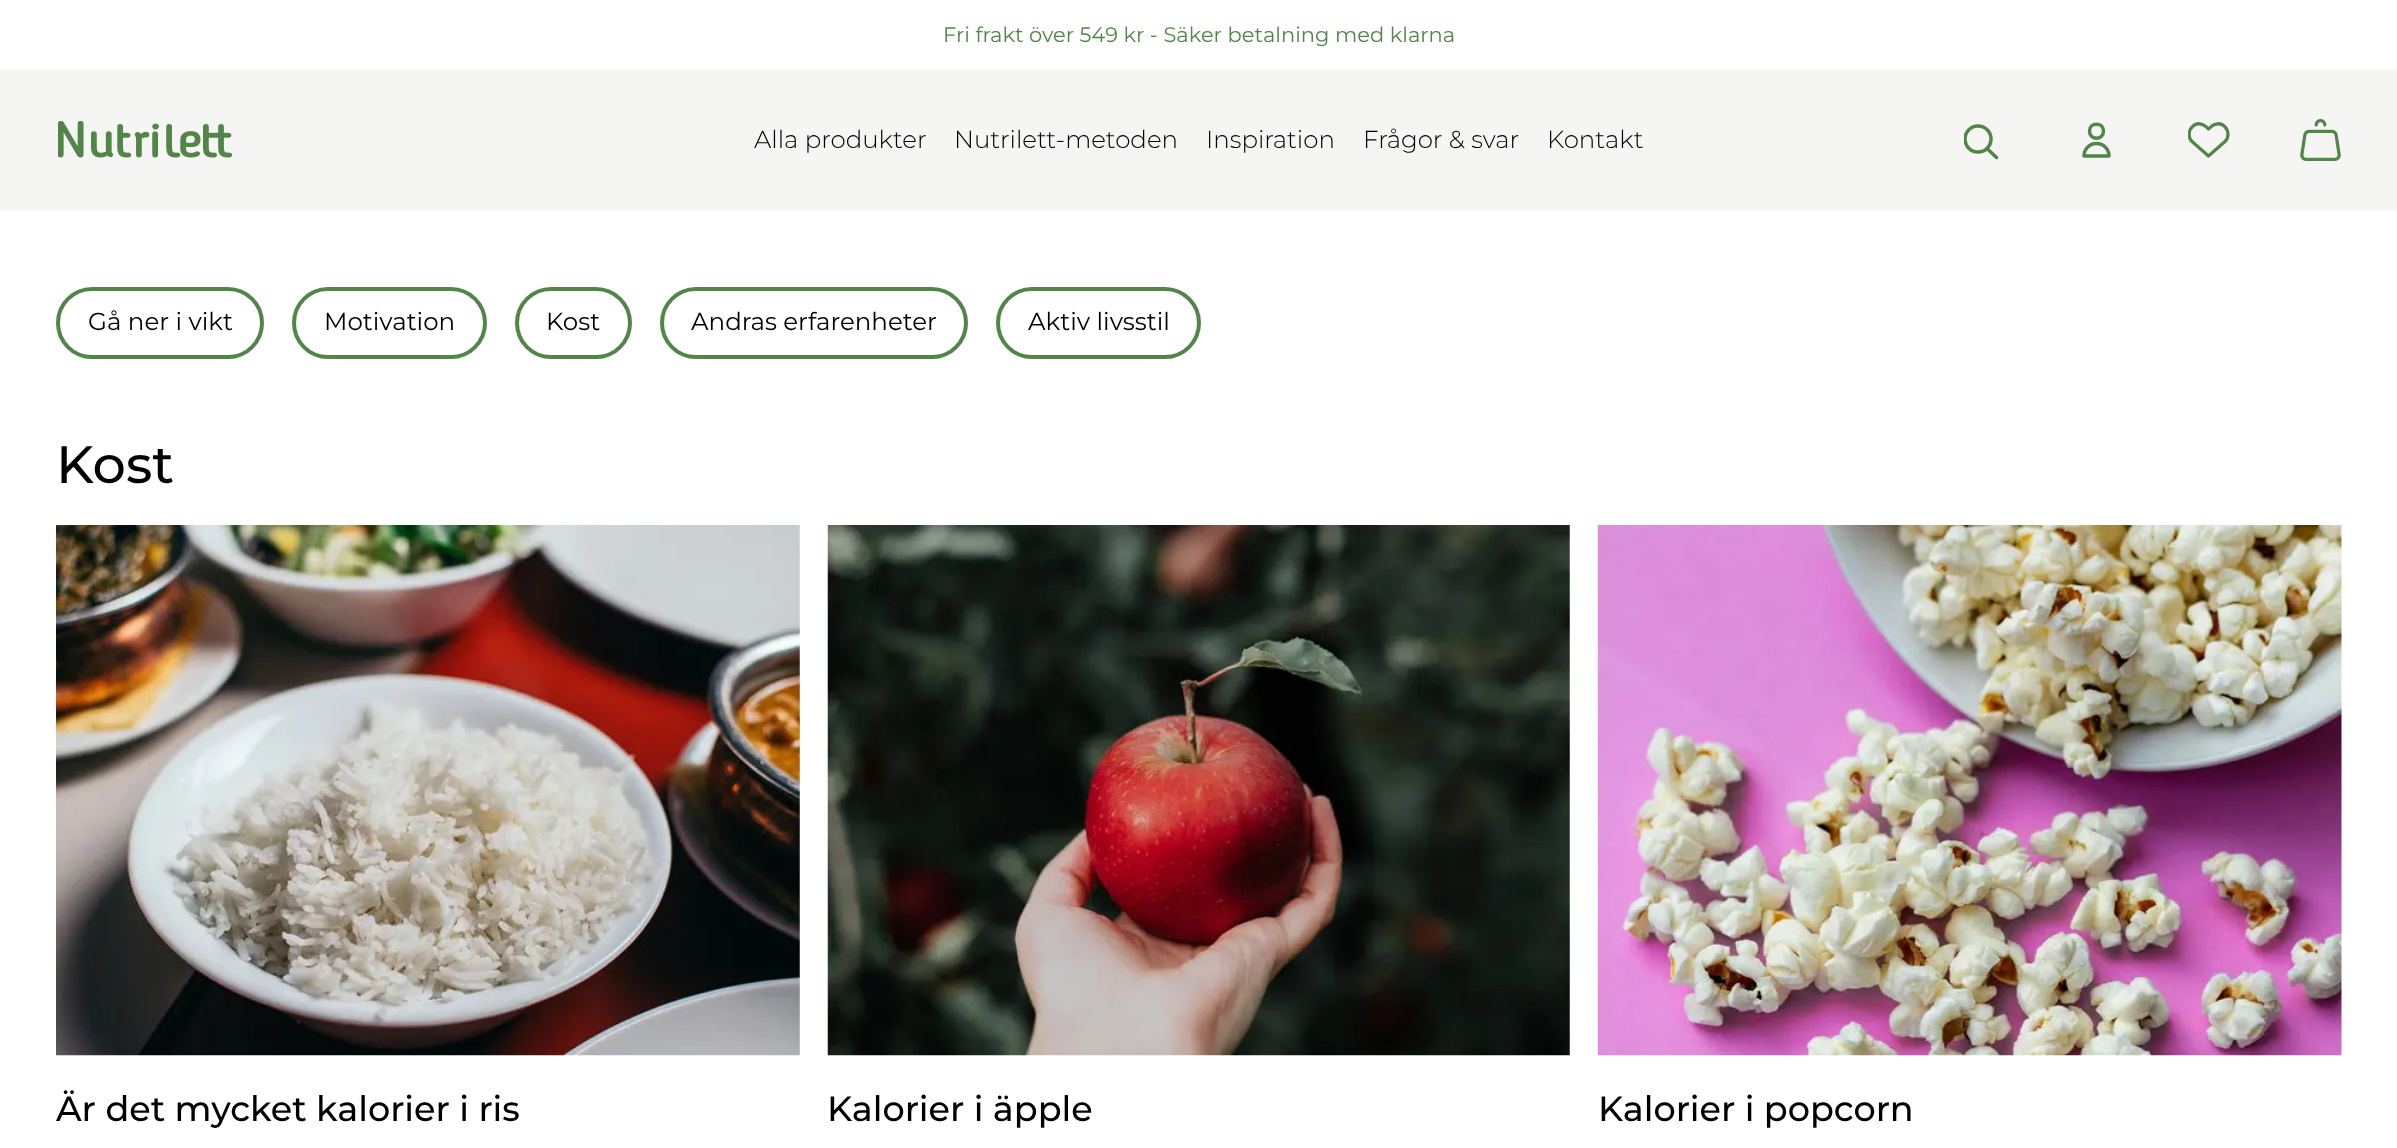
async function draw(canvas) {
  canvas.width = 2397;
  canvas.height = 1148;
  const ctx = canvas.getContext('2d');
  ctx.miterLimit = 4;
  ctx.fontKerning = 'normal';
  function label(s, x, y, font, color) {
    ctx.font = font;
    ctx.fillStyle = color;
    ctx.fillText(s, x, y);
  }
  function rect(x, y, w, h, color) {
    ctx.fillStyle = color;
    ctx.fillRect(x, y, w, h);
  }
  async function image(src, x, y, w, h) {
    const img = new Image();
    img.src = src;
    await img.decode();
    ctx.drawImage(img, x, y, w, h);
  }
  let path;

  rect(0, 0, 2397, 1148, '#fff');
  rect(0, 70, 2397, 140, '#f5f6f4');
  label('Fri frakt över 549 kr - Säker betalning med klarna', 943, 42, '21px Montserrat', '#528548');
  await image('assets/img1.png', 58, 121, 175, 37);
  label('Alla produkter', 754, 148, '300 24.5px Montserrat', '#000');
  label('Nutrilett-metoden', 954, 148, '300 24.5px Montserrat', '#000');
  label('Inspiration', 1206, 148, '300 24.5px Montserrat', '#000');
  label('Frågor & svar', 1363, 148, '300 24.5px Montserrat', '#000');
  label('Kontakt', 1547, 148, '300 24.5px Montserrat', '#000');
  ctx.save();
  ctx.beginPath();
  ctx.rect(1964, 119, 42, 42);
  ctx.clip();
  ctx.beginPath();
  ctx.arc(1978, 139, 13, 0, 2 * Math.PI);
  ctx.strokeStyle = '#528548';
  ctx.lineWidth = 3.5;
  ctx.stroke();
  ctx.restore();
  path = new Path2D('M1996.5 157.5L1987 148.5');
  ctx.strokeStyle = '#528548';
  ctx.lineWidth = 3.5;
  ctx.lineCap = 'round';
  ctx.lineJoin = 'round';
  ctx.stroke(path);
  path = new Path2D('M2103.5 131C2103.5 140.5 2089.5 140.5 2089.5 131C2089.5 122 2103.5 122 2103.5 131ZM2096.5 143.5C2089.5 143.5 2084 149 2084 156H2109C2109 149 2103.5 143.5 2096.5 143.5Z');
  ctx.stroke(path);
  ctx.save();
  ctx.beginPath();
  ctx.rect(2188, 119, 42, 42);
  ctx.clip();
  path = new Path2D('M2208.5 156L2192 141.5C2183 132.5 2196.5 115 2208.5 129C2221 115 2234 132.5 2225 141.5Z');
  ctx.lineWidth = 3.3;
  ctx.stroke(path);
  ctx.restore();
  await image('assets/img2.png', 2300, 119, 41, 42);
  ctx.beginPath();
  ctx.roundRect(58, 289, 204, 68, 34);
  ctx.lineWidth = 4;
  ctx.lineJoin = 'miter';
  ctx.stroke();
  label('Gå ner i vikt', 88, 330, '24.5px Montserrat', '#000');
  ctx.beginPath();
  ctx.roundRect(294, 289, 191, 68, 34);
  ctx.stroke();
  label('Motivation', 324, 330, '24.5px Montserrat', '#000');
  ctx.beginPath();
  ctx.roundRect(517, 289, 113, 68, 34);
  ctx.stroke();
  label('Kost', 546, 330, '24.5px Montserrat', '#000');
  ctx.beginPath();
  ctx.roundRect(662, 289, 304, 68, 34);
  ctx.stroke();
  label('Andras erfarenheter', 691, 330, '24.5px Montserrat', '#000');
  ctx.beginPath();
  ctx.roundRect(998, 289, 201, 68, 34);
  ctx.stroke();
  label('Aktiv livsstil', 1028, 330, '24.5px Montserrat', '#000');
  label('Kost', 56, 483, '500 52.5px Montserrat', '#000');
  await image('assets/img3.png', 56, 525, 744, 531);
  label('Är det mycket kalorier i ris', 56, 1121, '500 35px Montserrat', '#000');
  await image('assets/img4.png', 827, 525, 743, 531);
  label('Kalorier i äpple', 827, 1121, '500 35px Montserrat', '#000');
  await image('assets/img5.png', 1597, 525, 745, 531);
  label('Kalorier i popcorn', 1598, 1121, '500 35px Montserrat', '#000');
}

draw(document.querySelector('canvas'));
